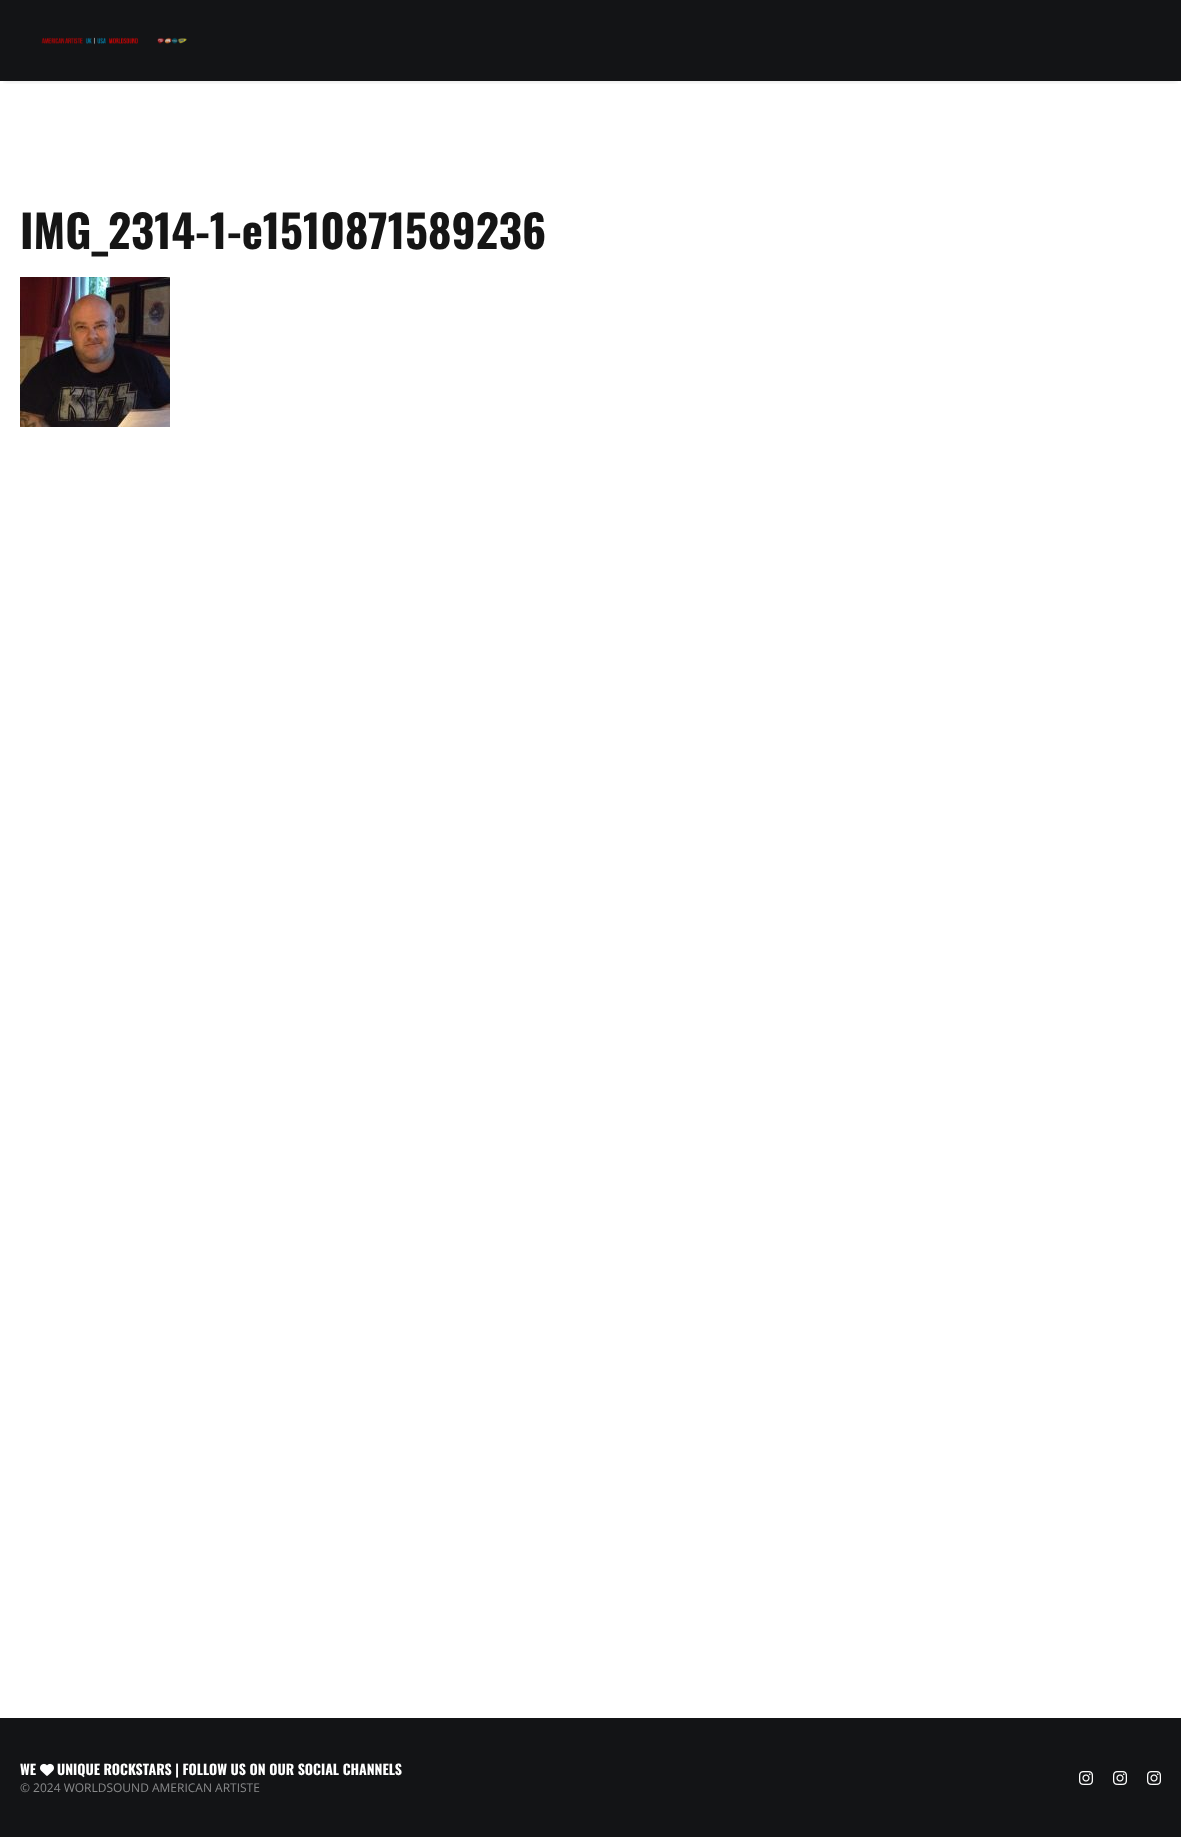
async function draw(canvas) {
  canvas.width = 1181;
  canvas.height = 1837;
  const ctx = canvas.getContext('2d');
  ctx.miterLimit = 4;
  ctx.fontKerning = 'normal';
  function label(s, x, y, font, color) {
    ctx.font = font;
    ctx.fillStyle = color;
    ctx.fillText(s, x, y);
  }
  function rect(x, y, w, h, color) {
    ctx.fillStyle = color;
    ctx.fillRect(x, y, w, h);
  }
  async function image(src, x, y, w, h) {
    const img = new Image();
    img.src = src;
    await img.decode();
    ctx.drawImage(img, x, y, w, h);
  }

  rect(0, 0, 1181, 1837, '#fff');
  rect(0, 0, 1181, 81, '#131416');
  ctx.save();
  ctx.beginPath();
  ctx.rect(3, 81, 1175, 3);
  ctx.clip();
  ctx.fillStyle = '#0000001a';
  ctx.filter = 'blur(2.5px)';
  ctx.beginPath();
  ctx.rect(4, 9, 1173, 73);
  ctx.fill();
  ctx.filter = 'none';
  ctx.restore();
  await image('assets/img1.png', 41, 37, 146, 8);
  label('IMG_2314-1-e1510871589236', 20, 249, 'bold 45px Oswald', '#151515');
  await image('assets/img2.png', 20, 277, 150, 150);
  rect(0, 1718, 1181, 119, '#131416');
  label('WE', 20, 1775, 'bold 14px Oswald', '#fff');
  await image('assets/img3.png', 40, 1763, 14, 13);
  label('UNIQUE ROCKSTARS | FOLLOW US ON OUR SOCIAL CHANNELS', 57, 1775, 'bold 14px Oswald', '#fff');
  label('© 2024 WORLDSOUND AMERICAN ARTISTE', 20, 1792, '12px Open Sans', '#898a8b');
  await image('assets/img4.png', 1079, 1771, 14, 14);
  await image('assets/img4.png', 1113, 1771, 14, 14);
  await image('assets/img4.png', 1147, 1771, 14, 14);
}

draw(document.querySelector('canvas'));
